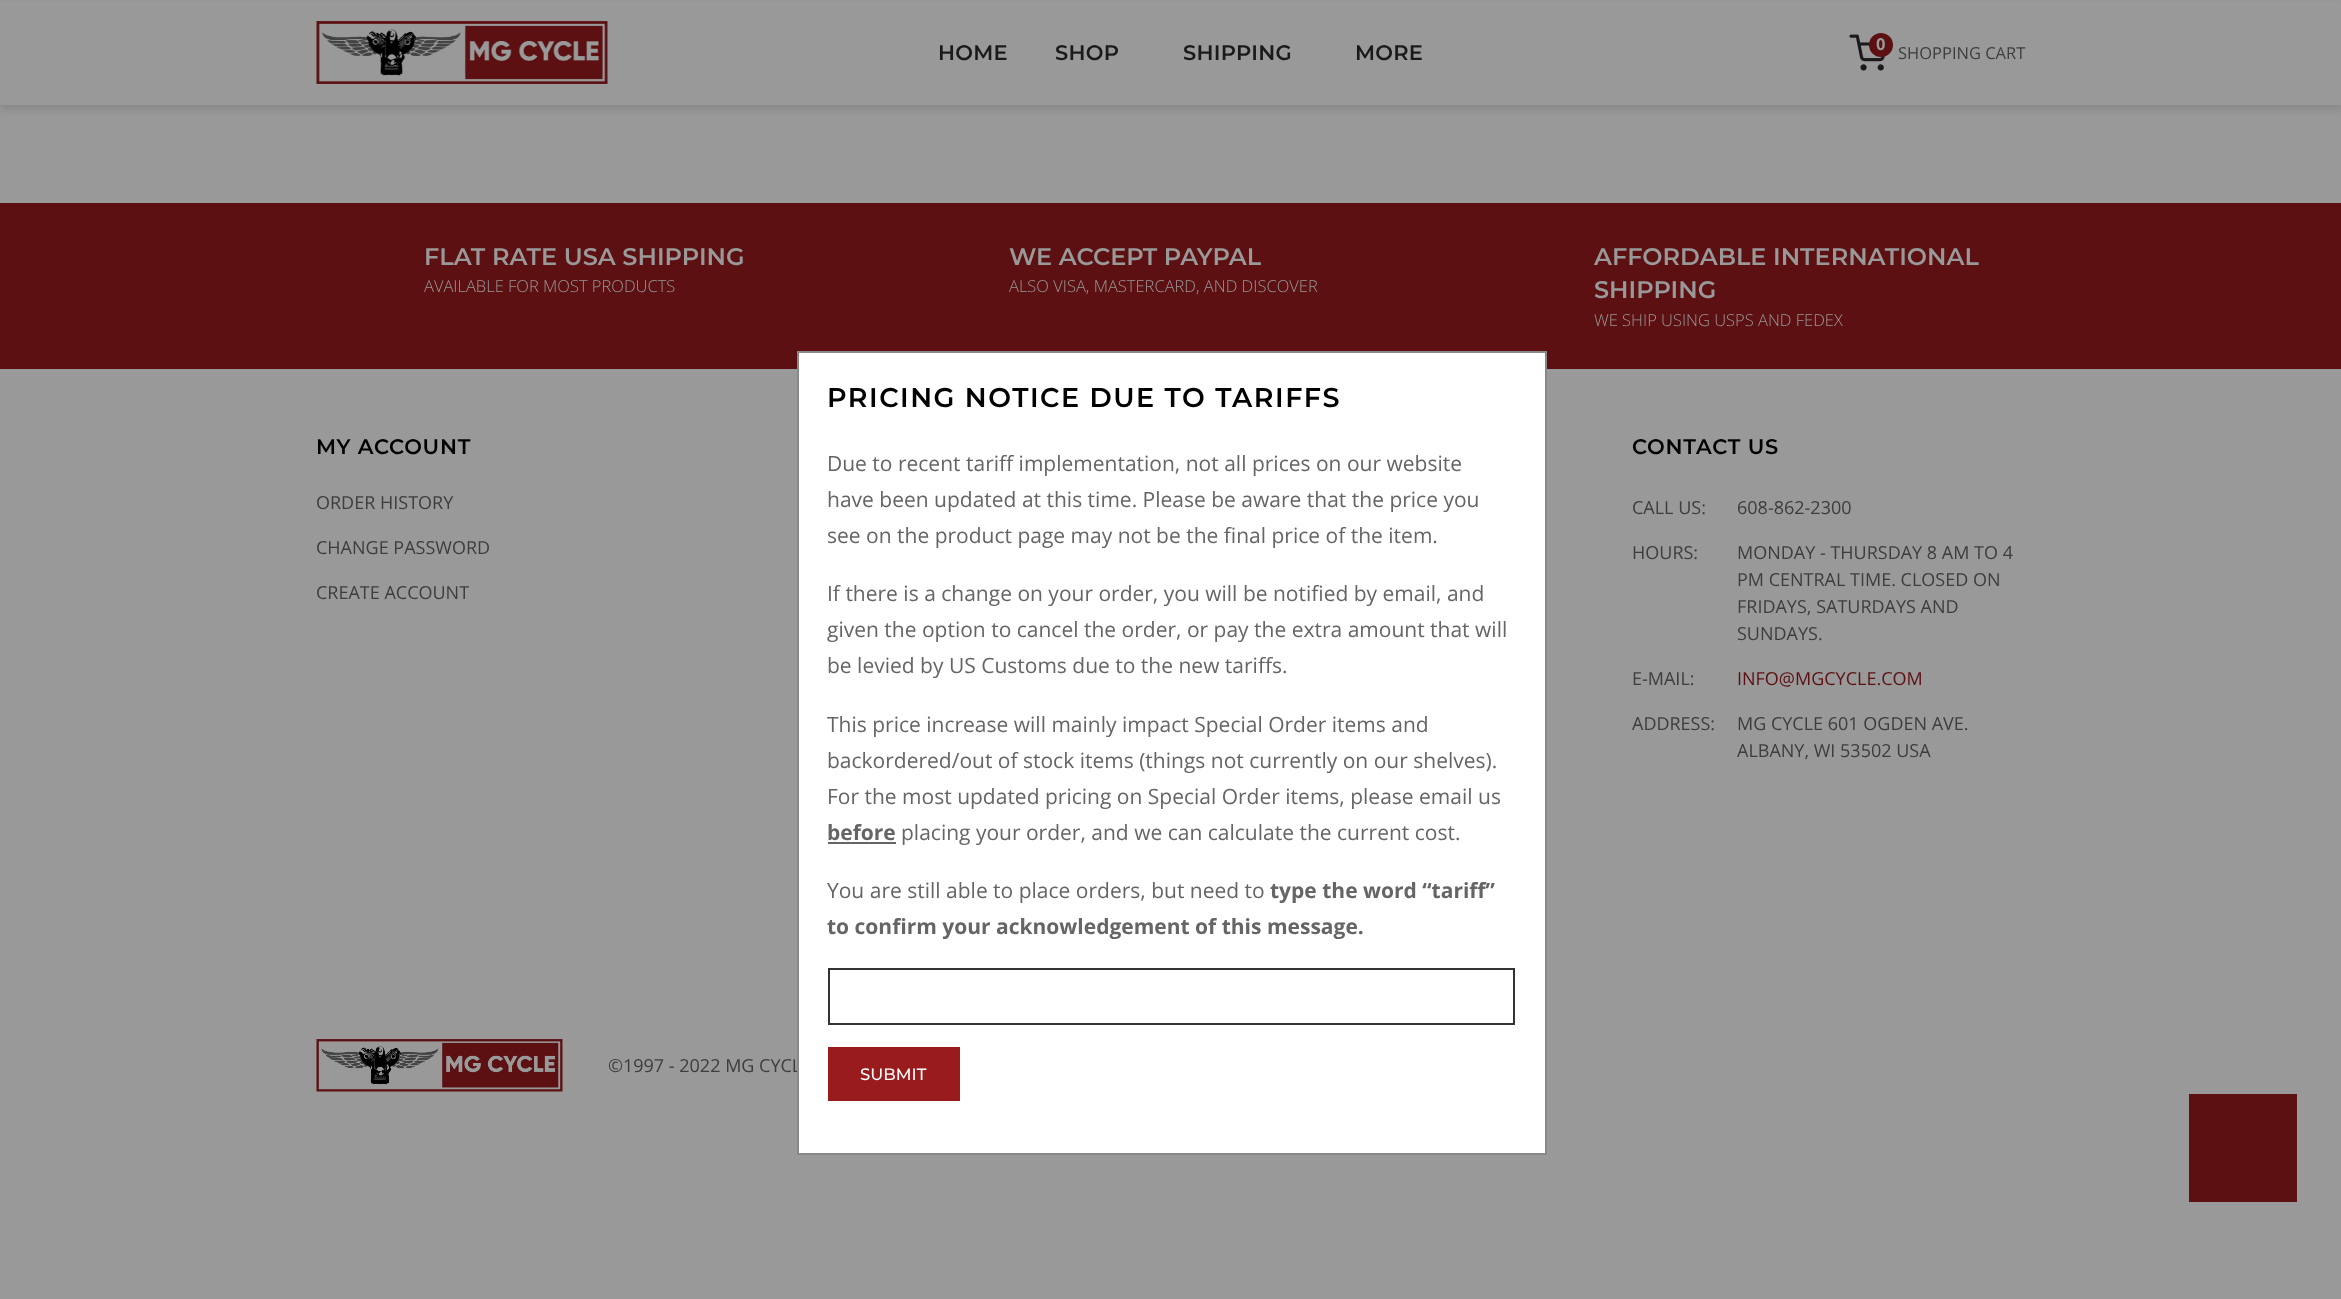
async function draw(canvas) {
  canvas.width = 2341;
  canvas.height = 1299;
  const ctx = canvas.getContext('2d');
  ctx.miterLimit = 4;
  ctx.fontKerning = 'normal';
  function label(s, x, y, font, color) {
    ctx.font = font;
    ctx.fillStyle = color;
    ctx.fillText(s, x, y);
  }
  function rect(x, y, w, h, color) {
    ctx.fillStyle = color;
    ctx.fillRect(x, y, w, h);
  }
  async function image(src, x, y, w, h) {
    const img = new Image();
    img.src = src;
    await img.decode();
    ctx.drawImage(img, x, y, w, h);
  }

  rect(0, 0, 2341, 1299, '#999');
  ctx.fillStyle = '#0000001a';
  ctx.filter = 'blur(3px)';
  ctx.beginPath();
  ctx.rect(0, 5, 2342, 105);
  ctx.fill();
  ctx.filter = 'none';
  rect(0, 2, 2341, 103, '#999');
  await image('assets/img1.png', 316, 21, 292, 63);
  ctx.letterSpacing = '0.25px';
  label('HOME', 938, 60, '600 21px Montserrat', '#1b1a1a');
  label('SHOP', 1055, 60, '600 21px Montserrat', '#1b1a1a');
  label('SHIPPING', 1183, 60, '600 21px Montserrat', '#1b1a1a');
  label('MORE', 1355, 60, '600 21px Montserrat', '#1b1a1a');
  await image('assets/img2.png', 1849, 34, 36, 37);
  ctx.fillStyle = '#5c1012';
  ctx.beginPath();
  ctx.arc(1881, 45, 12, 0, 2 * Math.PI);
  ctx.fill();
  ctx.letterSpacing = '0px';
  label('0', 1876, 50, 'bold 16.5px Open Sans', '#999');
  label('SHOPPING CART', 1898, 59, '16.5px Open Sans', '#3d3d3d');
  rect(0, 203, 2341, 166, '#5c1012');
  label('FLAT RATE USA SHIPPING', 424, 265, '600 24px Montserrat', '#999');
  label('AVAILABLE FOR MOST PRODUCTS', 424, 292, '300 16.5px Open Sans', '#999');
  label('WE ACCEPT PAYPAL', 1009, 265, '600 24px Montserrat', '#999');
  label('ALSO VISA, MASTERCARD, AND DISCOVER', 1009, 292, '300 16.5px Open Sans', '#999');
  label('AFFORDABLE INTERNATIONAL', 1594, 265, '600 24px Montserrat', '#999');
  label('SHIPPING', 1594, 298, '600 24px Montserrat', '#999');
  label('WE SHIP USING USPS AND FEDEX', 1594, 326, '300 16.5px Open Sans', '#999');
  ctx.letterSpacing = '0.75px';
  label('MY ACCOUNT', 316, 454, '600 21px Montserrat', '#000');
  ctx.save();
  ctx.beginPath();
  ctx.rect(317, 491, 612, 27);
  ctx.clip();
  ctx.letterSpacing = '0px';
  label('ORDER HISTORY', 316, 509, '18px Open Sans', '#3d3d3d');
  ctx.restore();
  ctx.save();
  ctx.beginPath();
  ctx.rect(317, 536, 612, 27);
  ctx.clip();
  ctx.letterSpacing = '0px';
  label('CHANGE PASSWORD', 316, 554, '18px Open Sans', '#3d3d3d');
  ctx.restore();
  ctx.save();
  ctx.beginPath();
  ctx.rect(317, 581, 612, 27);
  ctx.clip();
  ctx.letterSpacing = '0px';
  label('CREATE ACCOUNT', 316, 599, '18px Open Sans', '#3d3d3d');
  ctx.restore();
  label('CONTACT US', 1632, 454, '600 21px Montserrat', '#000');
  ctx.letterSpacing = '0px';
  label('CALL US:', 1632, 514, '18px Open Sans', '#3d3d3d');
  label('608-862-2300', 1737, 514, '18px Open Sans', '#3d3d3d');
  label('HOURS:', 1632, 559, '18px Open Sans', '#3d3d3d');
  label('MONDAY - THURSDAY 8 AM TO 4', 1737, 559, '18px Open Sans', '#3d3d3d');
  label('PM CENTRAL TIME. CLOSED ON', 1737, 586, '18px Open Sans', '#3d3d3d');
  label('FRIDAYS, SATURDAYS AND', 1737, 613, '18px Open Sans', '#3d3d3d');
  label('SUNDAYS.', 1737, 640, '18px Open Sans', '#3d3d3d');
  label('E-MAIL:', 1632, 685, '18px Open Sans', '#3d3d3d');
  label('INFO@MGCYCLE.COM', 1737, 685, '18px Open Sans', '#5c1012');
  label('ADDRESS:', 1632, 730, '18px Open Sans', '#3d3d3d');
  label('MG CYCLE 601 OGDEN AVE.', 1737, 730, '18px Open Sans', '#3d3d3d');
  label('ALBANY, WI 53502 USA', 1737, 757, '18px Open Sans', '#3d3d3d');
  await image('assets/img3.png', 316, 1039, 247, 53);
  label('©1997 - 2022 MG CYCL', 608, 1072, '18px Open Sans', '#3d3d3d');
  ctx.fillStyle = '#fff';
  ctx.beginPath();
  ctx.rect(798, 352, 748, 802);
  ctx.fill();
  ctx.strokeStyle = '#888';
  ctx.lineWidth = 2;
  ctx.stroke();
  ctx.letterSpacing = '1.5px';
  label('PRICING NOTICE DUE TO TARIFFS', 827, 407, '600 27px Montserrat', '#000');
  ctx.letterSpacing = '0px';
  label('Due to recent tariff implementation, not all prices on our website', 827, 471, '21px Open Sans', '#656565');
  label('have been updated at this time. Please be aware that the price you', 827, 507, '21px Open Sans', '#656565');
  label('see on the product page may not be the final price of the item.', 827, 543, '21px Open Sans', '#656565');
  label('If there is a change on your order, you will be notified by email, and', 827, 601, '21px Open Sans', '#656565');
  label('given the option to cancel the order, or pay the extra amount that will', 827, 637, '21px Open Sans', '#656565');
  label('be levied by US Customs due to the new tariffs.', 827, 673, '21px Open Sans', '#656565');
  label('This price increase will mainly impact Special Order items and', 827, 732, '21px Open Sans', '#656565');
  label('backordered/out of stock items (things not currently on our shelves).', 827, 768, '21px Open Sans', '#656565');
  label('For the most updated pricing on Special Order items, please email us', 827, 804, '21px Open Sans', '#656565');
  label('before', 827, 840, 'bold 21px Open Sans', '#656565');
  rect(828, 842, 68, 2, '#656565');
  label('placing your order, and we can calculate the current cost.', 901, 840, '21px Open Sans', '#656565');
  label('You are still able to place orders, but need to', 827, 898, '21px Open Sans', '#656565');
  label('type the word “tariff”', 1270, 898, 'bold 21px Open Sans', '#656565');
  label('to confirm your acknowledgement of this message.', 827, 934, 'bold 21px Open Sans', '#656565');
  ctx.strokeStyle = '#333';
  ctx.strokeRect(829, 969, 685, 55);
  rect(828, 1047, 132, 54, '#991b1e');
  label('SUBMIT', 860, 1080, '500 16.5px Montserrat', '#fff');
  rect(2189, 1094, 108, 108, '#5c1012');
}

draw(document.querySelector('canvas'));
